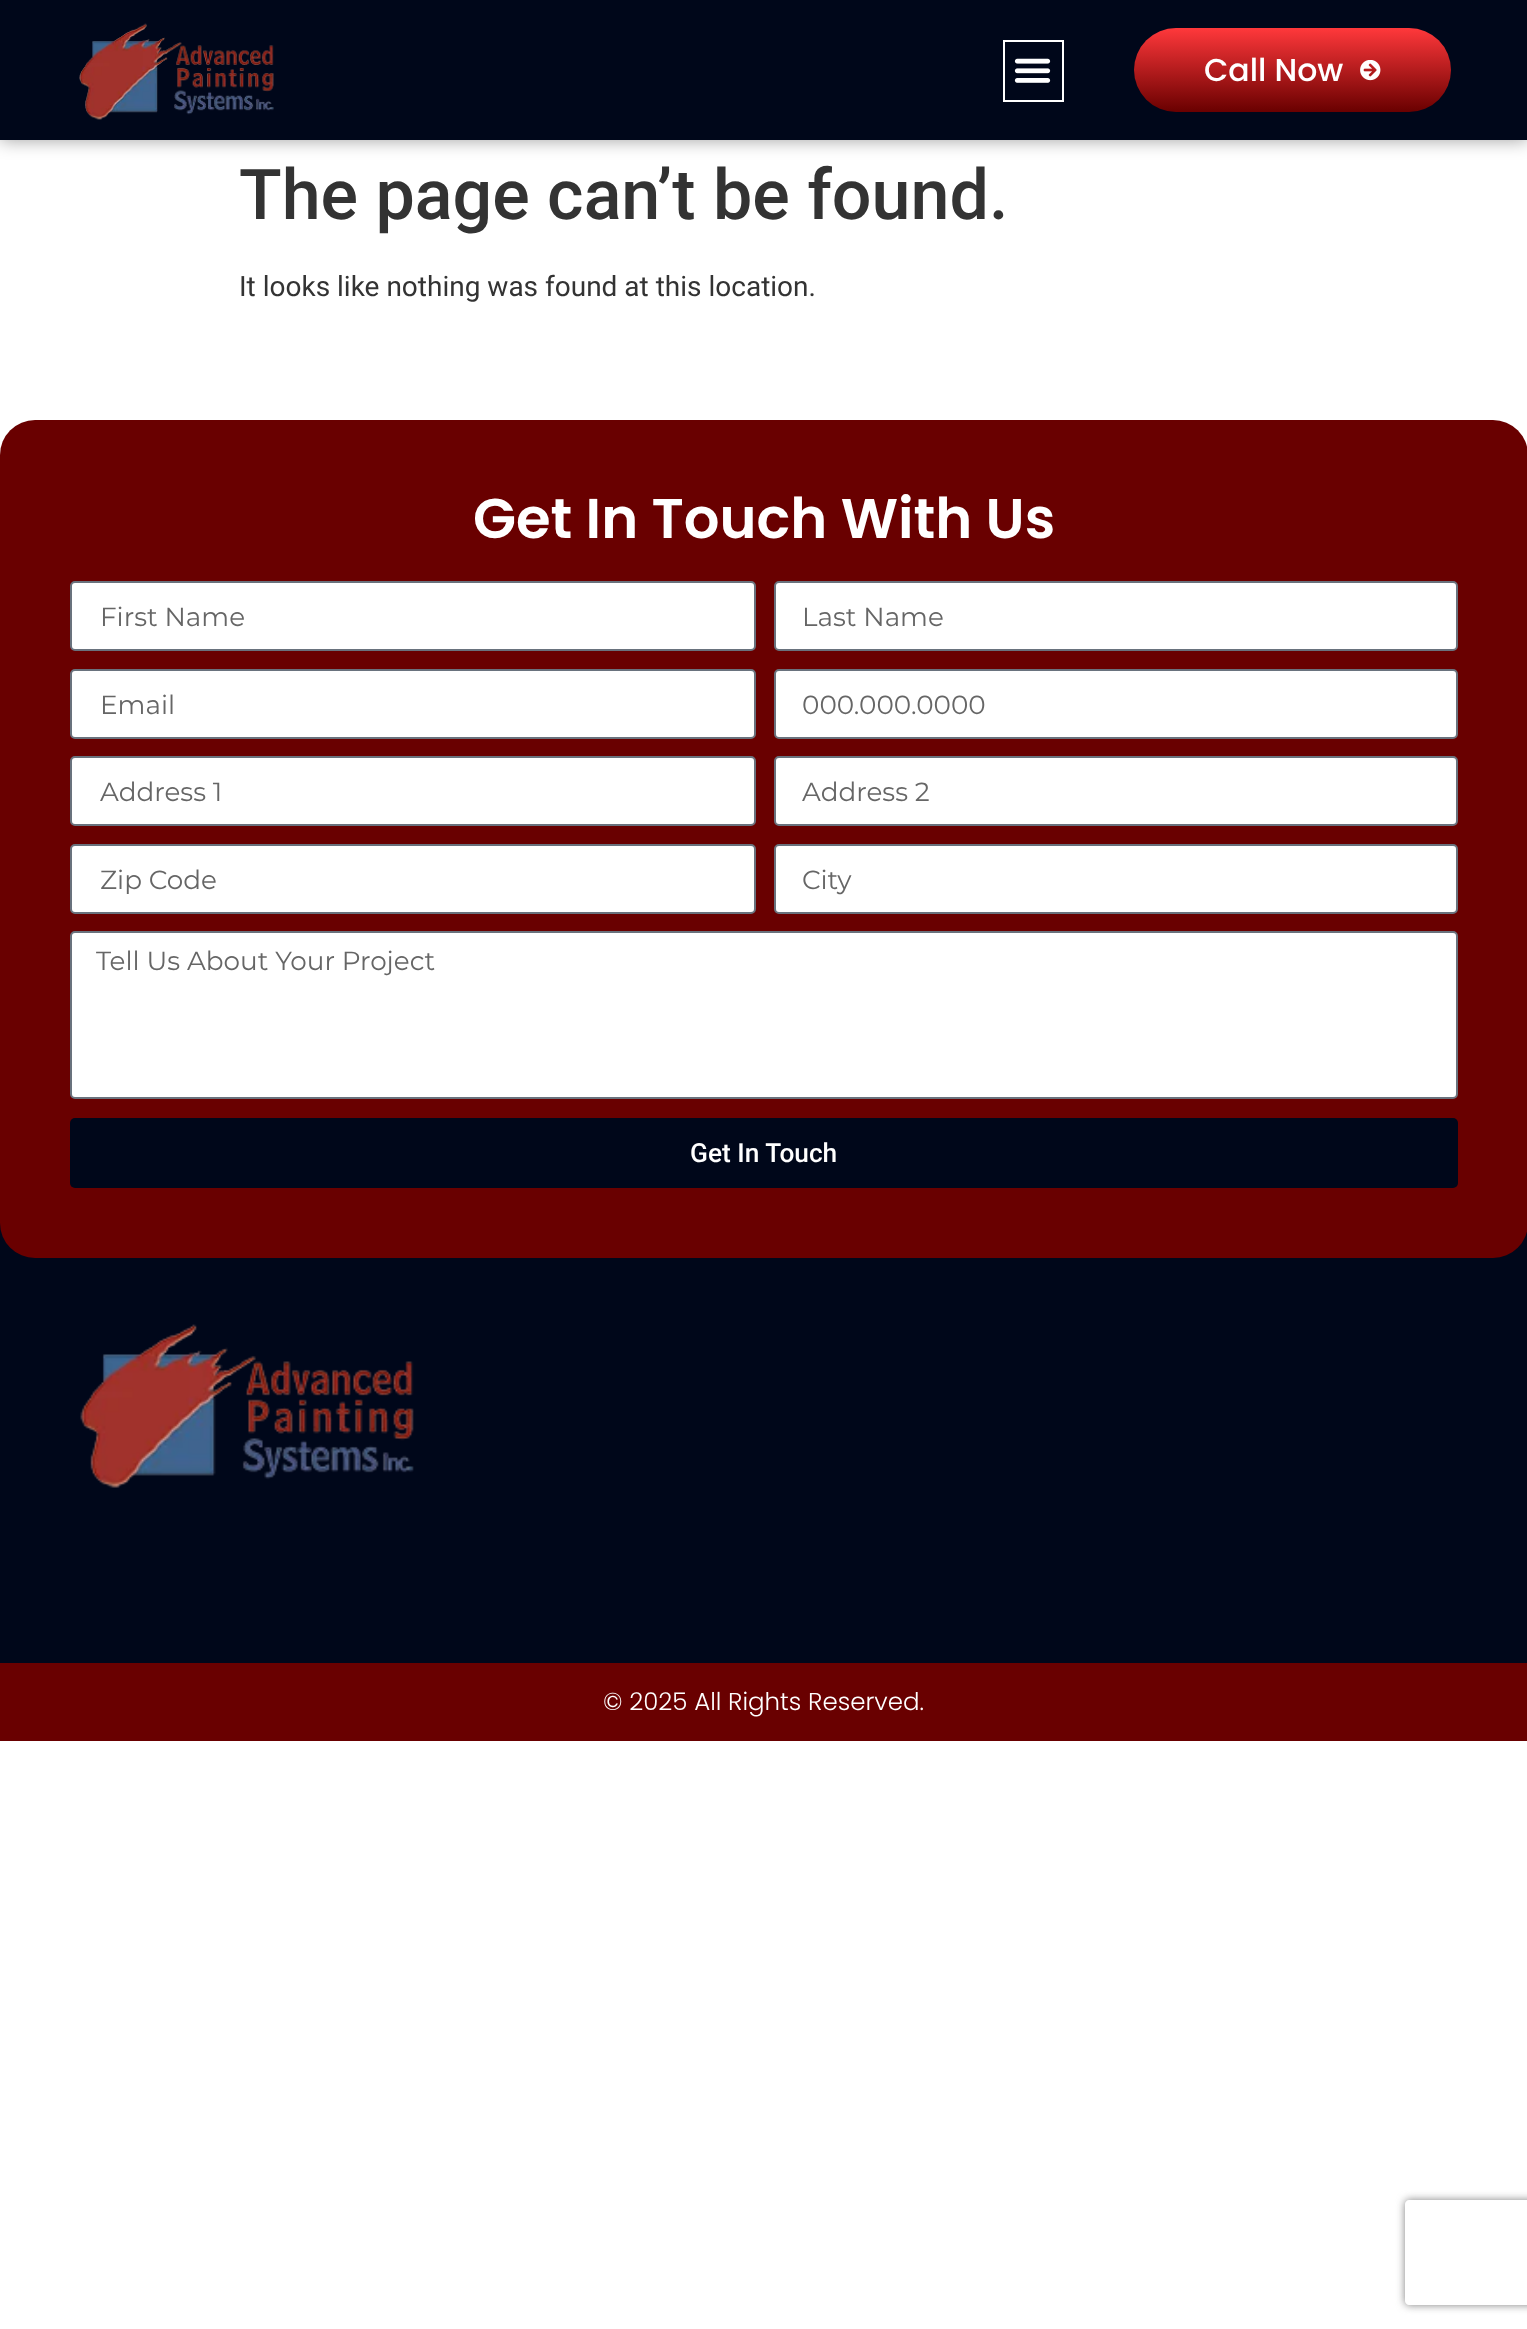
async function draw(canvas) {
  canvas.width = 1527;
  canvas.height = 2329;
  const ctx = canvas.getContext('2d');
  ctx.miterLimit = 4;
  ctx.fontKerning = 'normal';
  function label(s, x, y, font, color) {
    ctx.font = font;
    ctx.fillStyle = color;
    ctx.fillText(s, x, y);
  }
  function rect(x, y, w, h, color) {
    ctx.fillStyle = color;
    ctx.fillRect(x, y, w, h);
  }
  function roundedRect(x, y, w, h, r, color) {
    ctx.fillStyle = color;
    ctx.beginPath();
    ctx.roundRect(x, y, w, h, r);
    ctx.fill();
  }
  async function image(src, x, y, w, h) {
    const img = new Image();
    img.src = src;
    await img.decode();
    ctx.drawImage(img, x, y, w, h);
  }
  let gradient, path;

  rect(0, 0, 1527, 2329, '#fff');
  ctx.fillStyle = '#00000061';
  ctx.filter = 'blur(9px)';
  ctx.beginPath();
  ctx.rect(0, 0, 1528, 140);
  ctx.fill();
  ctx.filter = 'none';
  rect(0, 0, 1527, 140, '#00071a');
  await image('assets/img1.png', 79, 23, 195, 97);
  ctx.strokeStyle = '#fff';
  ctx.lineWidth = 2;
  ctx.strokeRect(1004, 41, 59, 60);
  await image('assets/img2.png', 1014, 58, 37, 25);
  gradient = ctx.createLinearGradient(1292, 28, 1292, 112);
  gradient.addColorStop(0, '#ff383b');
  gradient.addColorStop(1, '#690000');
  ctx.fillStyle = gradient;
  ctx.beginPath();
  ctx.roundRect(1134, 28, 317, 84, 42);
  ctx.fill();
  label('Call Now', 1204, 81, '500 31.5px Poppins', '#fff');
  await image('assets/img3.png', 1360, 60, 21, 21);
  label('The page can’t be found.', 239, 219, '500 70px Roboto', '#333');
  label('It looks like nothing was found at this location.', 239, 296, '28px Roboto', '#333');
  rect(0, 1223, 1527, 440, '#00071a');
  roundedRect(0, 420, 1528, 838, 35, '#690000');
  label('Get In Touch With Us', 473, 538, '600 56px Poppins', '#fff');
  ctx.beginPath();
  ctx.roundRect(71, 582, 684, 68, 4);
  ctx.fill();
  ctx.strokeStyle = '#69727d';
  ctx.stroke();
  label('First Name', 100, 626, '26.25px Montserrat', '#666');
  ctx.fillStyle = '#fff';
  ctx.beginPath();
  ctx.roundRect(775, 582, 682, 68, 4);
  ctx.fill();
  ctx.stroke();
  label('Last Name', 802, 626, '26.25px Montserrat', '#666');
  ctx.fillStyle = '#fff';
  ctx.beginPath();
  ctx.roundRect(71, 670, 684, 68, 4);
  ctx.fill();
  ctx.stroke();
  label('Email', 100, 714, '26.25px Montserrat', '#666');
  ctx.fillStyle = '#fff';
  ctx.beginPath();
  ctx.roundRect(775, 670, 682, 68, 4);
  ctx.fill();
  ctx.stroke();
  label('000.000.0000', 802, 714, '26.25px Montserrat', '#666');
  ctx.fillStyle = '#fff';
  ctx.beginPath();
  ctx.roundRect(71, 757, 684, 68, 4);
  ctx.fill();
  ctx.stroke();
  label('Address 1', 100, 801, '26.25px Montserrat', '#666');
  ctx.fillStyle = '#fff';
  ctx.beginPath();
  ctx.roundRect(775, 757, 682, 68, 4);
  ctx.fill();
  ctx.stroke();
  label('Address 2', 802, 801, '26.25px Montserrat', '#666');
  ctx.fillStyle = '#fff';
  ctx.beginPath();
  ctx.roundRect(71, 845, 684, 68, 4);
  ctx.fill();
  ctx.stroke();
  label('Zip Code', 100, 889, '26.25px Montserrat', '#666');
  ctx.fillStyle = '#fff';
  ctx.beginPath();
  ctx.roundRect(775, 845, 682, 68, 4);
  ctx.fill();
  ctx.stroke();
  label('City', 802, 889, '26.25px Montserrat', '#666');
  ctx.fillStyle = '#fff';
  ctx.beginPath();
  ctx.roundRect(71, 932, 1386, 166, 4);
  ctx.fill();
  ctx.stroke();
  label('Tell Us About Your Project', 96, 970, '26.25px Montserrat', '#666');
  roundedRect(70, 1118, 1388, 70, 5, '#00071a');
  label('Get In Touch', 690, 1162, '500 26.25px Roboto', '#fff');
  ctx.save();
  path = new Path2D('M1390 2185H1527V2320H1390ZM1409 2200H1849C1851 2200 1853 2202 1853 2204V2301C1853 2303 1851 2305 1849 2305H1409C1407 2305 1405 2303 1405 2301V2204C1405 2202 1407 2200 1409 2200Z');
  ctx.clip(path, 'evenodd');
  ctx.fillStyle = '#808080';
  ctx.filter = 'blur(4.5px)';
  ctx.beginPath();
  ctx.roundRect(1405, 2200, 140, 105, 4);
  ctx.fill();
  ctx.filter = 'none';
  ctx.restore();
  await image('assets/img4.png', 80, 1324, 334, 164);
  rect(0, 1663, 1527, 78, '#690000');
  label('© 2025 All Rights Reserved.', 603, 1710, '300 24.5px Poppins', '#fff');
}

draw(document.querySelector('canvas'));
